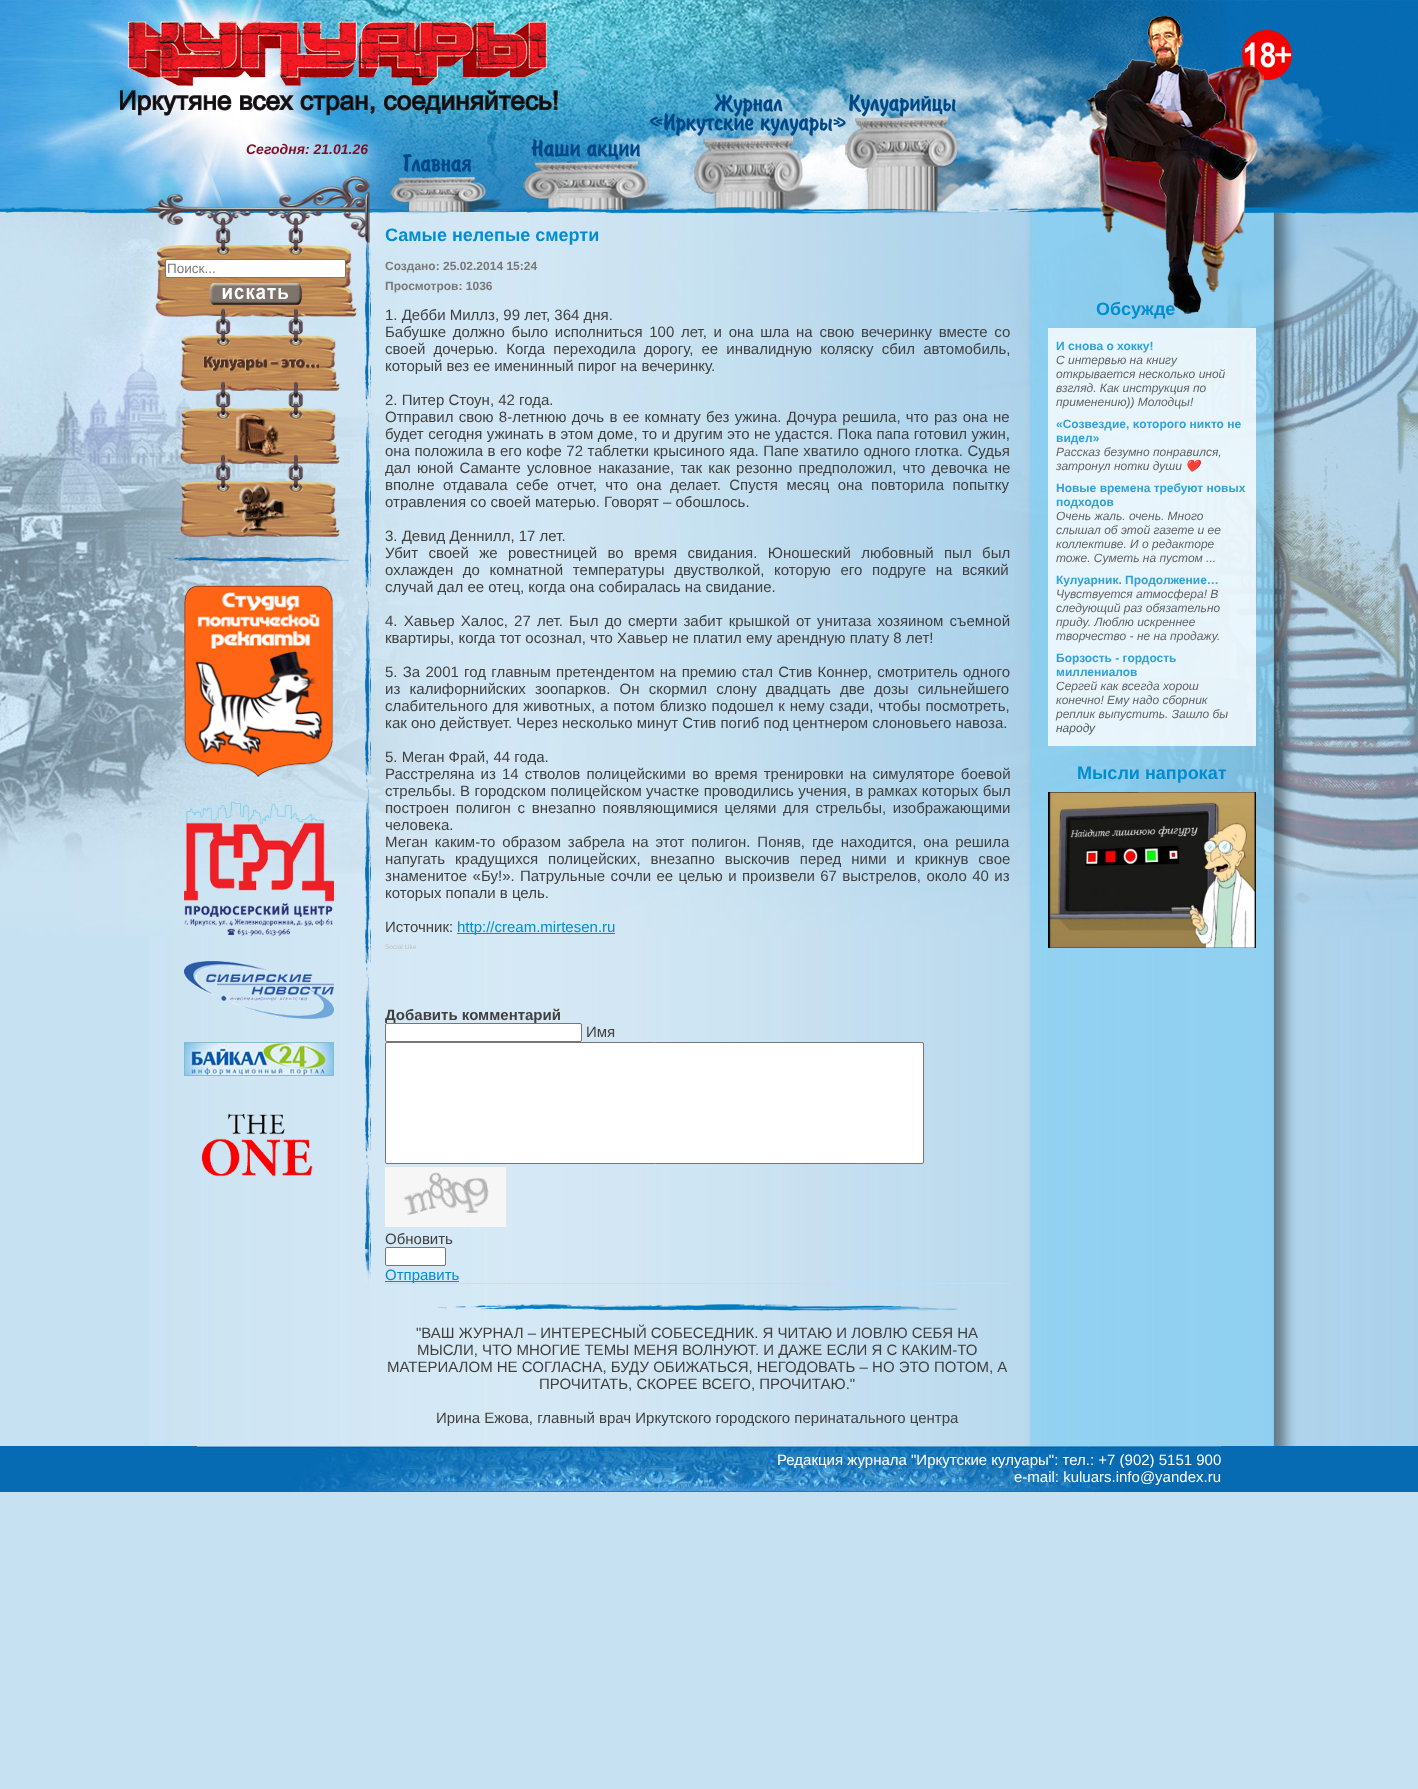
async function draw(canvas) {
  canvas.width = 1418;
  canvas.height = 1789;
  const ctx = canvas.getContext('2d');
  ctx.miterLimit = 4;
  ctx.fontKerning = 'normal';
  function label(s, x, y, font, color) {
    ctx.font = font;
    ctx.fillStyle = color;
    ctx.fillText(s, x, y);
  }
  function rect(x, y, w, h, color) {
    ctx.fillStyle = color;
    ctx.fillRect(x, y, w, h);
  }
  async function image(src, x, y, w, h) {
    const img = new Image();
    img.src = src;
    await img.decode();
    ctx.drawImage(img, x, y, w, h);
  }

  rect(0, 0, 1418, 1789, '#c6e1f1');
  await image('assets/img1.png', 149, 936, 1269, 510);
  await image('assets/img2.png', 0, 212, 1418, 724);
  await image('assets/img3.png', 0, 0, 1418, 212);
  await image('assets/img4.png', 125, 21, 422, 66);
  await image('assets/img15.png', 1083, 65, 310, 147);
  await image('assets/img6.png', 1242, 30, 50, 50);
  await image('assets/img11.png', 390, 116, 607, 96);
  await image('assets/img16.png', 0, 207, 1418, 7);
  await image('assets/img10.png', 1086, 65, 178, 227);
  label('Обсужде', 1096, 315, 'bold 18px Liberation Sans', '#018dd2');
  await image('assets/img5.png', 1094, 16, 154, 298);
  await image('assets/img7.png', 120, 90, 438, 26);
  await image('assets/img8.png', 650, 94, 196, 42);
  await image('assets/img9.png', 849, 94, 107, 23);
  await image('assets/img12.png', 235, 126, 143, 61);
  label('Сегодня: 21.01.26', 246, 154, 'italic bold 14px Liberation Sans', '#7b0f27');
  await image('assets/img13.png', 531, 139, 109, 21);
  await image('assets/img14.png', 403, 154, 68, 18);
  await image('assets/img36.png', 365, 225, 6, 1059);
  await image('assets/img17.png', 144, 176, 226, 68);
  await image('assets/img18.png', 155, 244, 202, 73);
  await image('assets/img19.png', 215, 217, 89, 39);
  ctx.fillStyle = '#fff';
  ctx.beginPath();
  ctx.roundRect(165.5, 259.5, 180, 18, 1.5);
  ctx.fill();
  ctx.strokeStyle = '#767676';
  ctx.stroke();
  label('Поиск...', 167, 273, '13.5px Liberation Sans', '#787878');
  await image('assets/img20.png', 209, 283, 93, 22);
  await image('assets/img21.png', 180, 335, 160, 56);
  await image('assets/img22.png', 215, 308, 89, 39);
  await image('assets/img23.png', 203, 356, 116, 15);
  await image('assets/img24.png', 180, 408, 160, 56);
  await image('assets/img26.png', 236, 413, 49, 44);
  await image('assets/img25.png', 215, 381, 89, 39);
  await image('assets/img27.png', 180, 481, 160, 56);
  await image('assets/img29.png', 234, 484, 57, 49);
  await image('assets/img28.png', 215, 454, 89, 39);
  await image('assets/img30.png', 161, 557, 188, 5);
  await image('assets/img31.png', 184, 585, 150, 192);
  await image('assets/img32.png', 184, 801, 150, 135);
  await image('assets/img33.png', 184, 961, 150, 58);
  await image('assets/img34.png', 184, 1042, 150, 34);
  await image('assets/img35.png', 201, 1113, 112, 64);
  label('Самые нелепые смерти', 385, 241, 'bold 18px Liberation Sans', '#018dd2');
  label('Создано: 25.02.2014 15:24', 385, 270, 'bold 12px Liberation Sans', '#787878');
  label('Просмотров: 1036', 385, 290, 'bold 12px Liberation Sans', '#787878');
  label('1. Дебби Миллз, 99 лет, 364 дня.', 385, 320, '15px Liberation Sans', '#403f3f');
  ctx.wordSpacing = '2.5px';
  label('Бабушке должно было исполниться 100 лет, и она шла на свою вечеринку вместе со', 385, 337, '15px Liberation Sans', '#403f3f');
  ctx.wordSpacing = '4px';
  label('своей дочерью. Когда переходила дорогу, ее инвалидную коляску сбил автомобиль,', 385, 354, '15px Liberation Sans', '#403f3f');
  ctx.wordSpacing = '0px';
  label('который вез ее именинный пирог на вечеринку.', 385, 371, '15px Liberation Sans', '#403f3f');
  label('2. Питер Стоун, 42 года.', 385, 405, '15px Liberation Sans', '#403f3f');
  ctx.wordSpacing = '1.1px';
  label('Отправил свою 8-летнюю дочь в ее комнату без ужина. Дочура решила, что раз она не', 385, 422, '15px Liberation Sans', '#403f3f');
  ctx.wordSpacing = '0.25px';
  label('будет сегодня ужинать в этом доме, то и другим это не удастся. Пока папа готовил ужин,', 385, 439, '15px Liberation Sans', '#403f3f');
  label('она положила в его кофе 72 таблетки крысиного яда. Папе хватило одного глотка. Судья', 385, 456, '15px Liberation Sans', '#403f3f');
  ctx.wordSpacing = '2px';
  label('дал юной Саманте условное наказание, так как резонно предположил, что девочка не', 385, 473, '15px Liberation Sans', '#403f3f');
  ctx.wordSpacing = '4.25px';
  label('вполне отдавала себе отчет, что она делает. Спустя месяц она повторила попытку', 385, 490, '15px Liberation Sans', '#403f3f');
  ctx.wordSpacing = '0px';
  label('отравления со своей матерью. Говорят – обошлось.', 385, 507, '15px Liberation Sans', '#403f3f');
  label('3. Девид Деннилл, 17 лет.', 385, 541, '15px Liberation Sans', '#403f3f');
  ctx.wordSpacing = '6.25px';
  label('Убит своей же ровестницей во время свидания. Юношеский любовный пыл был', 385, 558, '15px Liberation Sans', '#403f3f');
  ctx.wordSpacing = '5.5px';
  label('охлажден до комнатной температуры двустволкой, которую его подруге на всякий', 385, 575, '15px Liberation Sans', '#403f3f');
  ctx.wordSpacing = '0px';
  label('случай дал ее отец, когда она собиралась на свидание.', 385, 592, '15px Liberation Sans', '#403f3f');
  ctx.wordSpacing = '2px';
  label('4. Хавьер Халос, 27 лет. Был до смерти забит крышкой от унитаза хозяином съемной', 385, 626, '15px Liberation Sans', '#403f3f');
  ctx.wordSpacing = '0px';
  label('квартиры, когда тот осознал, что Хавьер не платил ему арендную плату 8 лет!', 385, 643, '15px Liberation Sans', '#403f3f');
  ctx.wordSpacing = '1.1px';
  label('5. За 2001 год главным претендентом на премию стал Стив Коннер, смотритель одного', 385, 677, '15px Liberation Sans', '#403f3f');
  ctx.wordSpacing = '5px';
  label('из калифорнийских зоопарков. Он скормил слону двадцать две дозы сильнейшего', 385, 694, '15px Liberation Sans', '#403f3f');
  ctx.wordSpacing = '0.75px';
  label('слабительного для животных, а потом близко подошел к нему сзади, чтобы посмотреть,', 385, 711, '15px Liberation Sans', '#403f3f');
  ctx.wordSpacing = '0px';
  label('как оно действует. Через несколько минут Стив погиб под центнером слоновьего навоза.', 385, 728, '15px Liberation Sans', '#403f3f');
  label('5. Меган Фрай, 44 года.', 385, 762, '15px Liberation Sans', '#403f3f');
  ctx.wordSpacing = '2px';
  label('Расстреляна из 14 стволов полицейскими во время тренировки на симуляторе боевой', 385, 779, '15px Liberation Sans', '#403f3f');
  ctx.wordSpacing = '0.25px';
  label('стрельбы. В городском полицейском участке проводились учения, в рамках которых был', 385, 796, '15px Liberation Sans', '#403f3f');
  ctx.wordSpacing = '2.5px';
  label('построен полигон с внезапно появляющимися целями для стрельбы, изображающими', 385, 813, '15px Liberation Sans', '#403f3f');
  ctx.wordSpacing = '0px';
  label('человека.', 385, 830, '15px Liberation Sans', '#403f3f');
  ctx.wordSpacing = '2.75px';
  label('Меган каким-то образом забрела на этот полигон. Поняв, где находится, она решила', 385, 847, '15px Liberation Sans', '#403f3f');
  ctx.wordSpacing = '5.75px';
  label('напугать крадущихся полицейских, внезапно выскочив перед ними и крикнув свое', 385, 864, '15px Liberation Sans', '#403f3f');
  ctx.wordSpacing = '1.25px';
  label('знаменитое «Бу!». Патрульные сочли ее целью и произвели 67 выстрелов, около 40 из', 385, 881, '15px Liberation Sans', '#403f3f');
  ctx.wordSpacing = '0px';
  label('которых попали в цель.', 385, 898, '15px Liberation Sans', '#403f3f');
  label('Источник:', 385, 932, '15px Liberation Sans', '#403f3f');
  rect(457, 933, 158, 1, '#018dd2');
  label('http://cream.mirtesen.ru', 457, 932, '15px Liberation Sans', '#018dd2');
  label('Social Like', 385, 949, '6.5px Liberation Sans', '#c0c0c0');
  rect(385, 1283, 625, 1, '#d2dadb');
  label('Добавить комментарий', 385, 1020, 'bold 15px Liberation Sans', '#403f3f');
  ctx.fillStyle = '#fff';
  ctx.beginPath();
  ctx.roundRect(385.5, 1023.5, 196, 18, 1.5);
  ctx.fill();
  ctx.stroke();
  label('Имя', 586, 1037, '15px Liberation Sans', '#403f3f');
  ctx.fillStyle = '#fff';
  ctx.beginPath();
  ctx.roundRect(385.5, 1042.5, 538, 121, 1.5);
  ctx.fill();
  ctx.stroke();
  await image('assets/img37.png', 385, 1167, 121, 60);
  label('Обновить', 385, 1244, '15px Liberation Sans', '#403f3f');
  ctx.fillStyle = '#fff';
  ctx.beginPath();
  ctx.roundRect(385.5, 1247.5, 60, 18, 1.5);
  ctx.fill();
  ctx.stroke();
  rect(385, 1281, 74, 1, '#018dd2');
  label('Отправить', 385, 1280, '15px Liberation Sans', '#018dd2');
  await image('assets/img38.png', 437, 1304, 521, 7);
  label('"ВАШ ЖУРНАЛ – ИНТЕРЕСНЫЙ СОБЕСЕДНИК. Я ЧИТАЮ И ЛОВЛЮ СЕБЯ НА', 416, 1338, '15px Liberation Sans', '#403f3f');
  label('МЫСЛИ, ЧТО МНОГИЕ ТЕМЫ МЕНЯ ВОЛНУЮТ. И ДАЖЕ ЕСЛИ Я С КАКИМ-ТО', 417, 1355, '15px Liberation Sans', '#403f3f');
  label('МАТЕРИАЛОМ НЕ СОГЛАСНА, БУДУ ОБИЖАТЬСЯ, НЕГОДОВАТЬ – НО ЭТО ПОТОМ, А', 387, 1372, '15px Liberation Sans', '#403f3f');
  label('ПРОЧИТАТЬ, СКОРЕЕ ВСЕГО, ПРОЧИТАЮ."', 539, 1389, '15px Liberation Sans', '#403f3f');
  label('Ирина Ежова, главный врач Иркутского городского перинатального центра', 436, 1423, '15px Liberation Sans', '#403f3f');
  rect(1048, 328, 208, 418, '#ffffffcc');
  label('И снова о хокку!', 1056, 350, 'bold 12px Liberation Sans', '#2fa2da');
  label('С интервью на книгу', 1056, 364, 'italic 12px Liberation Sans', '#626365');
  label('открывается несколько иной', 1056, 378, 'italic 12px Liberation Sans', '#626365');
  label('взгляд. Как инструкция по', 1056, 392, 'italic 12px Liberation Sans', '#626365');
  label('применению)) Молодцы!', 1056, 406, 'italic 12px Liberation Sans', '#626365');
  label('«Созвездие, ĸоторого ниĸто не', 1056, 428, 'bold 12px Liberation Sans', '#2fa2da');
  label('видел»', 1056, 442, 'bold 12px Liberation Sans', '#2fa2da');
  label('Рассказ безумно понравился,', 1056, 456, 'italic 12px Liberation Sans', '#626365');
  label('затронул нотки души', 1056, 470, 'italic 12px Liberation Sans', '#626365');
  label('❤️', 1185, 470, 'italic 12px Noto Color Emoji', '#626365');
  label('Новые времена требуют новых', 1056, 492, 'bold 12px Liberation Sans', '#2fa2da');
  label('подходов', 1056, 506, 'bold 12px Liberation Sans', '#2fa2da');
  label('Очень жаль. очень. Много', 1056, 520, 'italic 12px Liberation Sans', '#626365');
  label('слышал об этой газете и ее', 1056, 534, 'italic 12px Liberation Sans', '#626365');
  label('коллективе. И о редакторе', 1056, 548, 'italic 12px Liberation Sans', '#626365');
  label('тоже. Суметь на пустом ...', 1056, 562, 'italic 12px Liberation Sans', '#626365');
  label('Кулуарник. Продолжение…', 1056, 584, 'bold 12px Liberation Sans', '#2fa2da');
  label('Чувствуется атмосфера! В', 1056, 598, 'italic 12px Liberation Sans', '#626365');
  label('следующий раз обязательно', 1056, 612, 'italic 12px Liberation Sans', '#626365');
  label('приду. Люблю искреннее', 1056, 626, 'italic 12px Liberation Sans', '#626365');
  label('творчество - не на продажу.', 1056, 640, 'italic 12px Liberation Sans', '#626365');
  label('Борзость - гордость', 1056, 662, 'bold 12px Liberation Sans', '#2fa2da');
  label('миллениалов', 1056, 676, 'bold 12px Liberation Sans', '#2fa2da');
  label('Сергей как всегда хорош', 1056, 690, 'italic 12px Liberation Sans', '#626365');
  label('конечно! Ему надо сборник', 1056, 704, 'italic 12px Liberation Sans', '#626365');
  label('реплик выпустить. Зашло бы', 1056, 718, 'italic 12px Liberation Sans', '#626365');
  label('народу', 1056, 732, 'italic 12px Liberation Sans', '#4f5b62');
  label('Мысли напрокат', 1077, 779, 'bold 18px Liberation Sans', '#018dd2');
  await image('assets/img39.png', 1048, 792, 208, 156);
  rect(0, 1446, 1418, 46, '#076bb3');
  await image('assets/img40.png', 197, 1446, 1024, 46);
  label('Редакция журнала "Иркутские кулуары": тел.: +7 (902) 5151 900', 777, 1465, '15px Liberation Sans', '#fff');
  label('e-mail: kuluars.info@yandex.ru', 1014, 1482, '15px Liberation Sans', '#fff');
}

draw(document.querySelector('canvas'));
